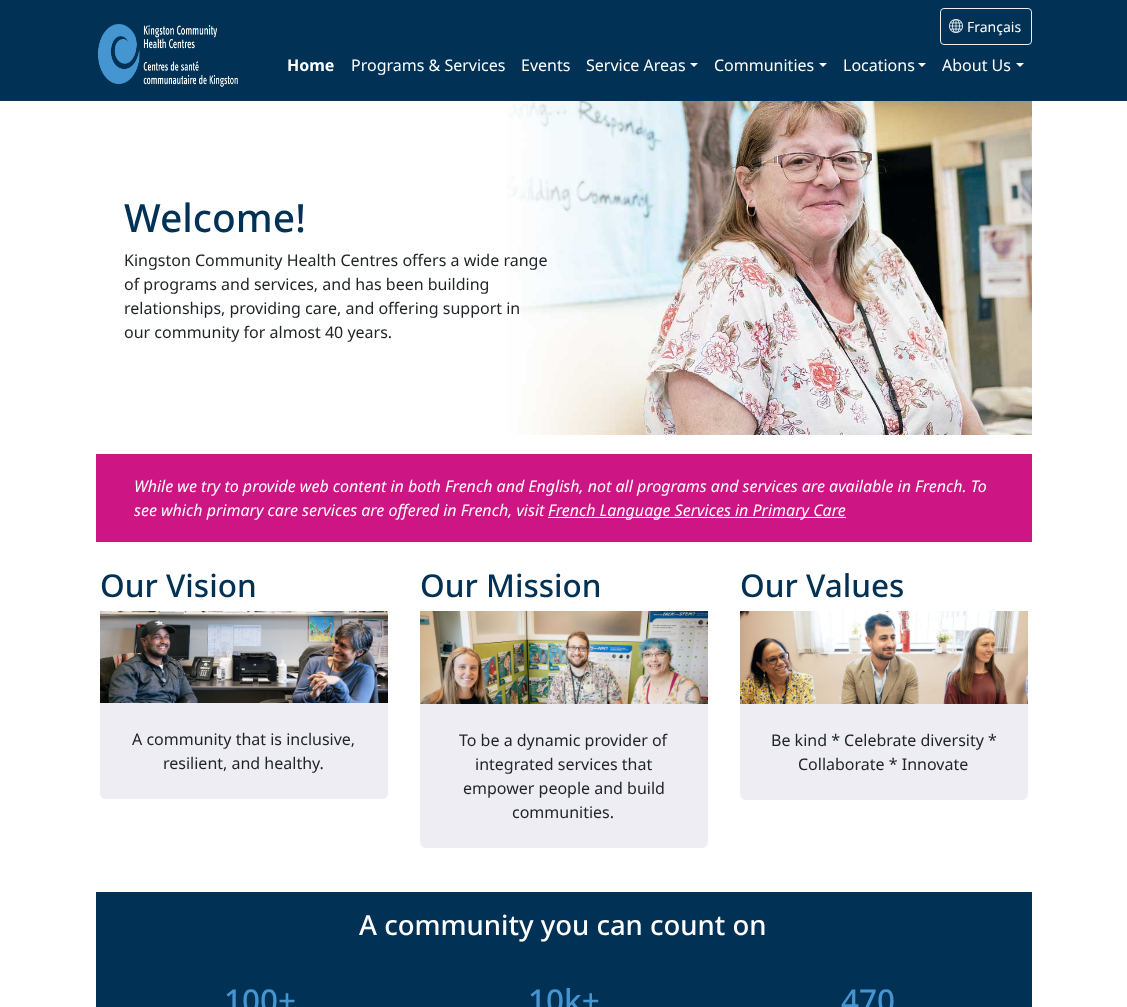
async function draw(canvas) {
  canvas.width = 1127;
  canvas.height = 1007;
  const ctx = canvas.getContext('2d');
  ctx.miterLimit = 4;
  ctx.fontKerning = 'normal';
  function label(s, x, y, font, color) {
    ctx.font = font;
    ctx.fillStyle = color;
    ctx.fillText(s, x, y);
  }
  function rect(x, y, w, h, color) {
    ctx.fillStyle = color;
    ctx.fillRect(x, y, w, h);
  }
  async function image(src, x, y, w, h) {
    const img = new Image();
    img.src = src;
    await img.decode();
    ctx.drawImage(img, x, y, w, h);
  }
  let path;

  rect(0, 0, 1127, 1007, '#fff');
  rect(0, 0, 1127, 101, '#013154');
  await image('assets/img1.png', 97, 24, 141, 63);
  ctx.beginPath();
  ctx.roundRect(940.5, 8.5, 91, 36, 3.5);
  ctx.strokeStyle = '#ededf3';
  ctx.stroke();
  await image('assets/img2.png', 949, 19, 14, 14);
  label('Français', 967, 32, '14px Noto Sans', '#fff');
  label('Home', 287, 71, 'bold 16px Noto Sans', '#fff');
  label('Programs & Services', 351, 71, '16px Noto Sans', '#fff');
  label('Events', 521, 71, '16px Noto Sans', '#fff');
  label('Service Areas', 586, 71, '16px Noto Sans', '#fff');
  path = new Path2D('M690 63H698L694 67Z');
  ctx.fill(path);
  label('Communities', 714, 71, '16px Noto Sans', '#fff');
  path = new Path2D('M819 63H827L823 67Z');
  ctx.fill(path);
  label('Locations', 843, 71, '16px Noto Sans', '#fff');
  path = new Path2D('M918 63H926L922 67Z');
  ctx.fill(path);
  label('About Us', 942, 71, '16px Noto Sans', '#fff');
  path = new Path2D('M1016 63H1024L1020 67Z');
  ctx.fill(path);
  label('Welcome!', 124, 232, '500 39px Noto Sans', '#013154');
  await image('assets/img3.png', 507, 101, 525, 334);
  label('Kingston Community Health Centres offers a wide range', 124, 266, '16px Noto Sans', '#212529');
  label('of programs and services, and has been building', 124, 290, '16px Noto Sans', '#212529');
  label('relationships, providing care, and offering support in', 124, 314, '16px Noto Sans', '#212529');
  label('our community for almost 40 years.', 124, 338, '16px Noto Sans', '#212529');
  rect(96, 454, 936, 88, '#cd1684');
  label('While we try to provide web content in both French and English, not all programs and services are available in French. To', 134, 492, 'italic 16px Noto Sans', '#fff');
  label('see which primary care services are offered in French, visit', 134, 516, 'italic 16px Noto Sans', '#fff');
  rect(548, 517, 298, 1, '#fff');
  label('French Language Services in Primary Care', 548, 516, 'italic 16px Noto Sans', '#fff');
  label('Our Vision', 100, 597, '500 31.5px Noto Sans', '#013154');
  await image('assets/img4.png', 100, 611, 288, 92);
  ctx.fillStyle = '#ededf3';
  ctx.beginPath();
  ctx.roundRect(100, 703, 288, 96, [0, 0, 6, 6]);
  ctx.fill();
  label('A community that is inclusive,', 132, 745, '16px Noto Sans', '#212529');
  label('resilient, and healthy.', 163, 769, '16px Noto Sans', '#212529');
  label('Our Mission', 420, 597, '500 31.5px Noto Sans', '#013154');
  await image('assets/img5.png', 420, 611, 288, 93);
  ctx.fillStyle = '#ededf3';
  ctx.beginPath();
  ctx.roundRect(420, 704, 288, 144, [0, 0, 6, 6]);
  ctx.fill();
  label('To be a dynamic provider of', 459, 746, '16px Noto Sans', '#212529');
  label('integrated services that', 475, 770, '16px Noto Sans', '#212529');
  label('empower people and build', 463, 794, '16px Noto Sans', '#212529');
  label('communities.', 512, 818, '16px Noto Sans', '#212529');
  label('Our Values', 740, 597, '500 31.5px Noto Sans', '#013154');
  await image('assets/img6.png', 740, 611, 288, 93);
  ctx.fillStyle = '#ededf3';
  ctx.beginPath();
  ctx.roundRect(740, 704, 288, 96, [0, 0, 6, 6]);
  ctx.fill();
  label('Be kind * Celebrate diversity *', 771, 746, '16px Noto Sans', '#212529');
  label('Collaborate * Innovate', 798, 770, '16px Noto Sans', '#212529');
  rect(96, 892, 936, 115, '#013154');
  label('A community you can count on', 359, 935, '500 27.5px Noto Sans', '#fff');
  label('100+', 224, 1012, '500 31.5px Noto Sans', '#4595d1');
  label('10k+', 528, 1012, '500 31.5px Noto Sans', '#4595d1');
  label('470', 841, 1012, '500 31.5px Noto Sans', '#4595d1');
}

draw(document.querySelector('canvas'));
